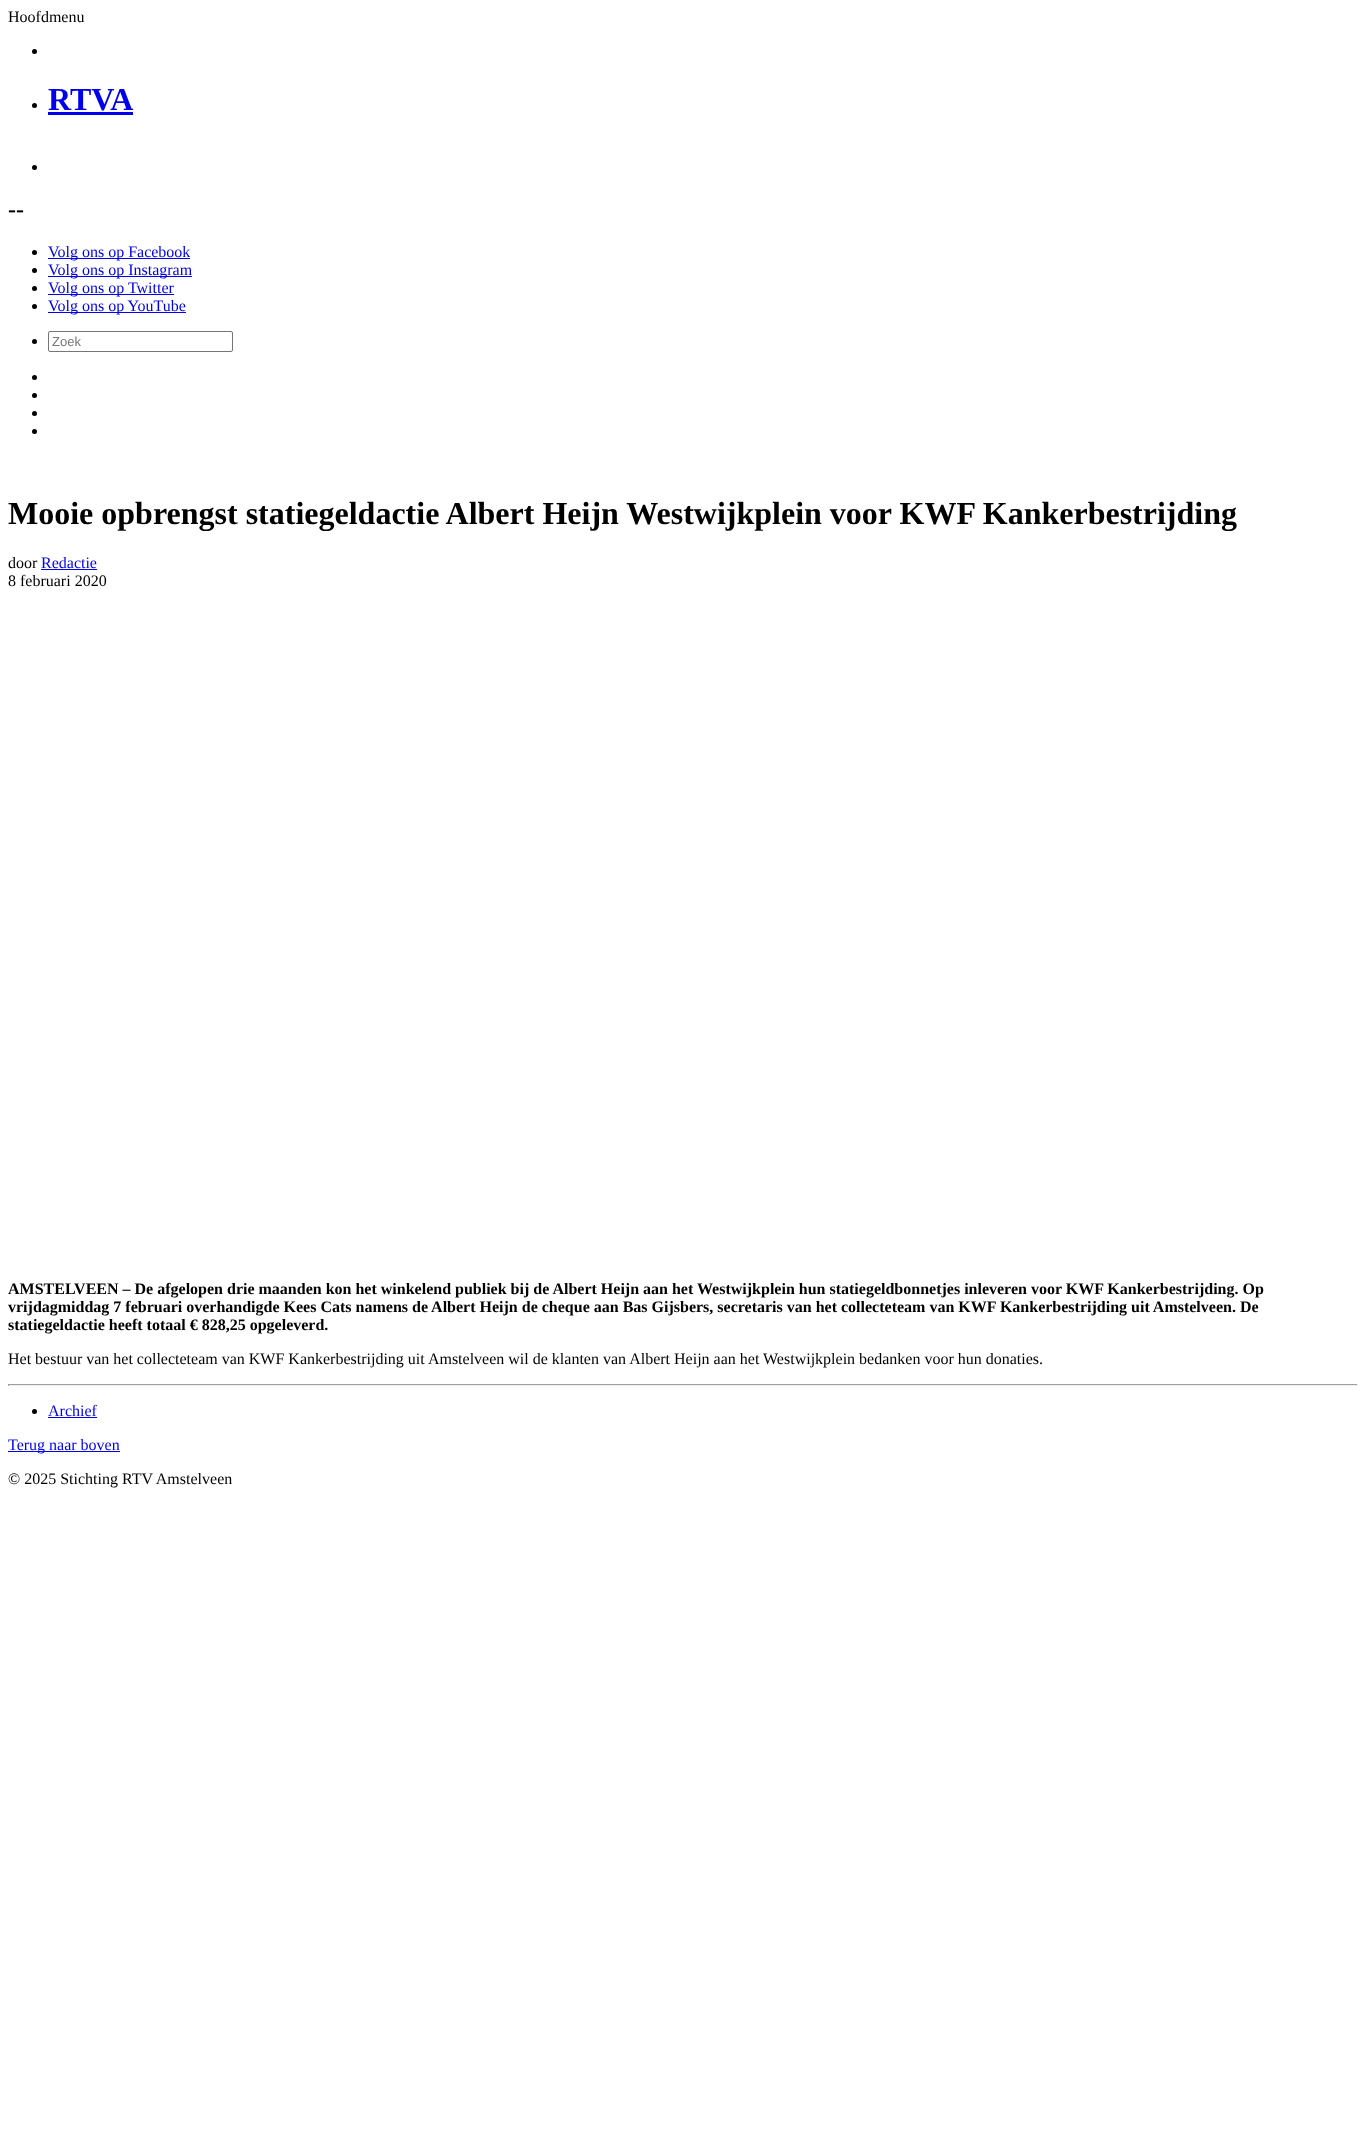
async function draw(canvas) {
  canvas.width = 1366;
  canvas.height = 2142;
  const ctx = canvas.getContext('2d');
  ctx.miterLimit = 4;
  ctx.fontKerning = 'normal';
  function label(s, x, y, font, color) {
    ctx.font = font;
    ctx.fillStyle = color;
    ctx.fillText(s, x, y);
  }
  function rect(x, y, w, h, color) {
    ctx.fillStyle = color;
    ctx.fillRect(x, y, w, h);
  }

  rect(0, 0, 1366, 2142, '#fff');
  label('Hoofdmenu', 8, 22, '16px Liberation Serif', '#000');
  ctx.beginPath();
  ctx.arc(34.5, 51.5, 2.5, 0, 2 * Math.PI);
  ctx.fill();
  ctx.beginPath();
  ctx.arc(34.5, 105.5, 2.5, 0, 2 * Math.PI);
  ctx.fill();
  label('RTVA', 48, 110, 'bold 32px Liberation Serif', '#00e');
  rect(48, 112, 85, 3, '#00e');
  ctx.fillStyle = '#000';
  ctx.beginPath();
  ctx.arc(34.5, 167.5, 2.5, 0, 2 * Math.PI);
  ctx.fill();
  label('--', 8, 217, 'bold 24px Liberation Serif', '#000');
  ctx.beginPath();
  ctx.arc(34.5, 252.5, 2.5, 0, 2 * Math.PI);
  ctx.fill();
  rect(48, 258, 142, 1, '#00e');
  label('Volg ons op Facebook', 48, 257, '16px Liberation Serif', '#00e');
  ctx.fillStyle = '#000';
  ctx.beginPath();
  ctx.arc(34.5, 270.5, 2.5, 0, 2 * Math.PI);
  ctx.fill();
  rect(48, 276, 144, 1, '#00e');
  label('Volg ons op Instagram', 48, 275, '16px Liberation Serif', '#00e');
  ctx.fillStyle = '#000';
  ctx.beginPath();
  ctx.arc(34.5, 288.5, 2.5, 0, 2 * Math.PI);
  ctx.fill();
  rect(48, 294, 126, 1, '#00e');
  label('Volg ons op Twitter', 48, 293, '16px Liberation Serif', '#00e');
  ctx.fillStyle = '#000';
  ctx.beginPath();
  ctx.arc(34.5, 306.5, 2.5, 0, 2 * Math.PI);
  ctx.fill();
  rect(48, 312, 138, 1, '#00e');
  label('Volg ons op YouTube', 48, 311, '16px Liberation Serif', '#00e');
  ctx.fillStyle = '#000';
  ctx.beginPath();
  ctx.arc(34.5, 341.5, 2.5, 0, 2 * Math.PI);
  ctx.fill();
  ctx.beginPath();
  ctx.roundRect(48.5, 331.5, 184, 20, 1.5);
  ctx.strokeStyle = '#767676';
  ctx.stroke();
  label('Zoek', 52, 346, '13px Liberation Sans', '#757575');
  ctx.fillStyle = '#000';
  ctx.beginPath();
  ctx.arc(34.5, 377.5, 2.5, 0, 2 * Math.PI);
  ctx.fill();
  ctx.beginPath();
  ctx.arc(34.5, 395.5, 2.5, 0, 2 * Math.PI);
  ctx.fill();
  ctx.beginPath();
  ctx.arc(34.5, 413.5, 2.5, 0, 2 * Math.PI);
  ctx.fill();
  ctx.beginPath();
  ctx.arc(34.5, 431.5, 2.5, 0, 2 * Math.PI);
  ctx.fill();
  label('Mooie opbrengst statiegeldactie Albert Heijn Westwijkplein voor KWF Kankerbestrijding', 8, 524, 'bold 32px Liberation Serif', '#000');
  label('door', 8, 568, '16px Liberation Serif', '#000');
  label('Redactie', 41, 568, '16px Liberation Serif', '#00e');
  rect(41, 569, 56, 1, '#00e');
  label('8 februari 2020', 8, 586, '16px Liberation Serif', '#000');
  label('AMSTELVEEN – De afgelopen drie maanden kon het winkelend publiek bij de Albert Heijn aan het Westwijkplein hun statiegeldbonnetjes inleveren voor KWF Kankerbestrijding. Op', 8, 1294, 'bold 16px Liberation Serif', '#000');
  label('vrijdagmiddag 7 februari overhandigde Kees Cats namens de Albert Heijn de cheque aan Bas Gijsbers, secretaris van het collecteteam van KWF Kankerbestrijding uit Amstelveen. De', 8, 1312, 'bold 16px Liberation Serif', '#000');
  label('statiegeldactie heeft totaal € 828,25 opgeleverd.', 8, 1330, 'bold 16px Liberation Serif', '#000');
  label('Het bestuur van het collecteteam van KWF Kankerbestrijding uit Amstelveen wil de klanten van Albert Heijn aan het Westwijkplein bedanken voor hun donaties.', 8, 1364, '16px Liberation Serif', '#000');
  rect(8, 1384, 1350, 1, '#9f9f9f');
  rect(1357, 1384, 1, 2, '#eee');
  rect(8, 1385, 1350, 1, '#eee');
  rect(8, 1384, 1, 2, '#9f9f9f');
  ctx.fillStyle = '#000';
  ctx.beginPath();
  ctx.arc(34.5, 1411.5, 2.5, 0, 2 * Math.PI);
  ctx.fill();
  label('Archief', 48, 1416, '16px Liberation Serif', '#00e');
  rect(48, 1417, 49, 1, '#00e');
  rect(8, 1451, 112, 1, '#00e');
  label('Terug naar boven', 8, 1450, '16px Liberation Serif', '#00e');
  label('© 2025 Stichting RTV Amstelveen', 8, 1484, '16px Liberation Serif', '#000');
}

draw(document.querySelector('canvas'));
